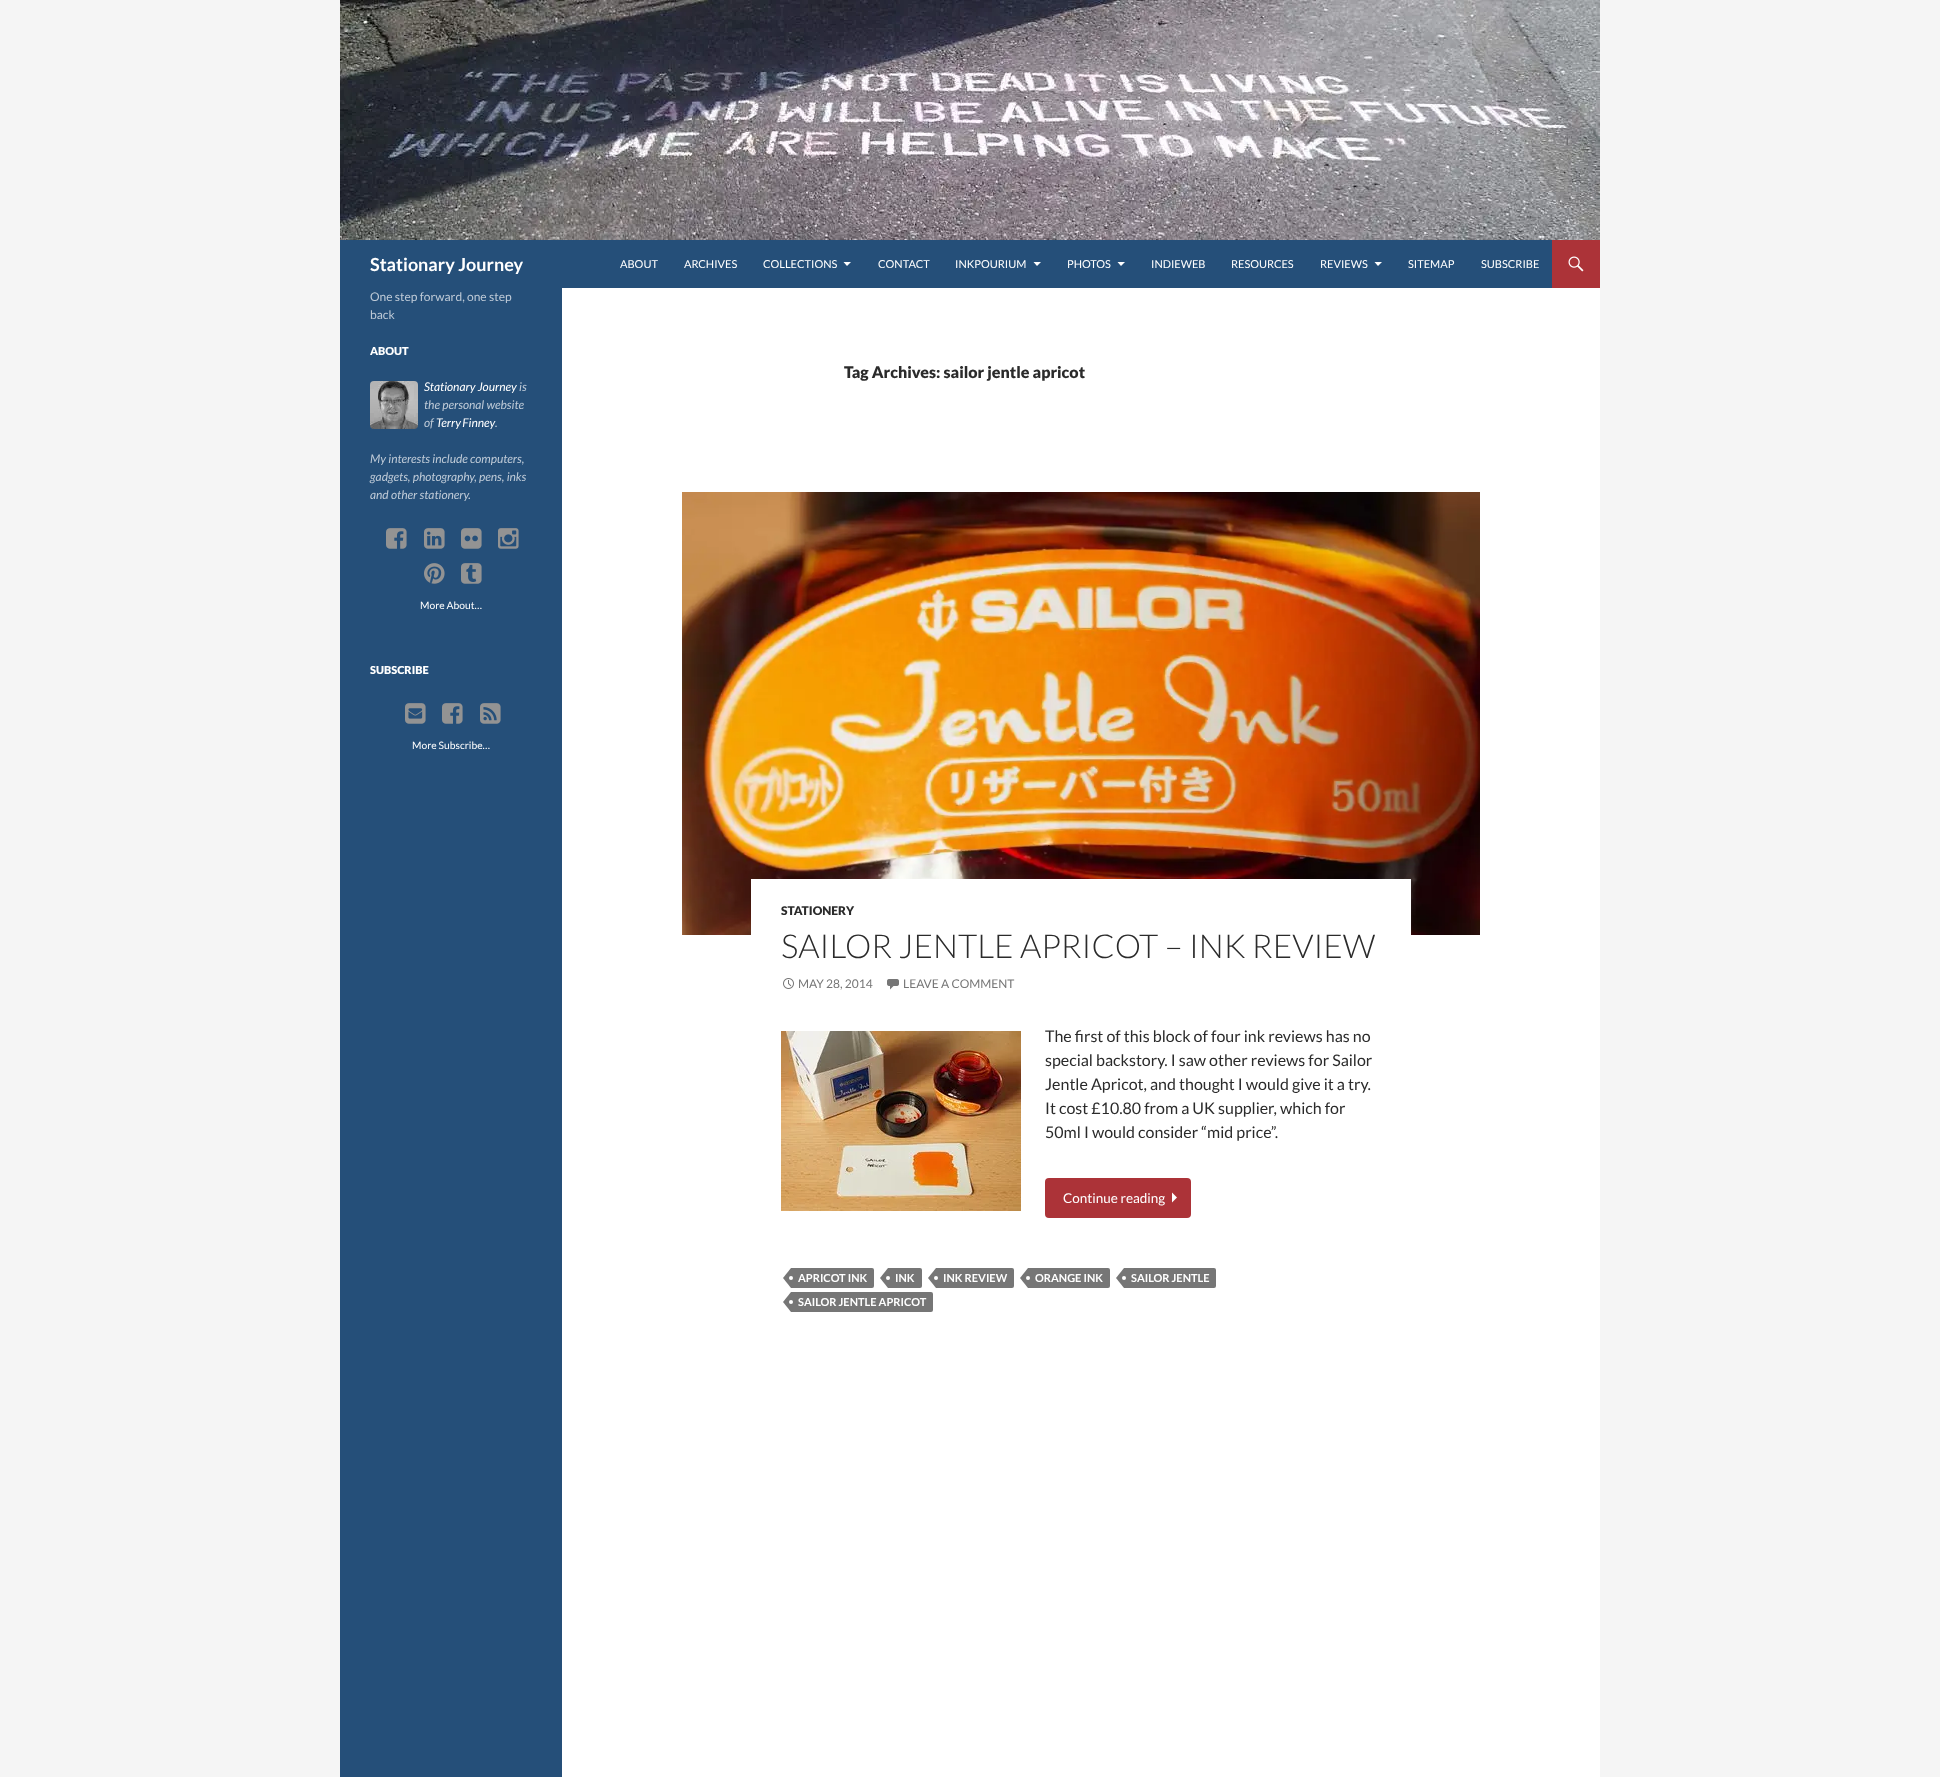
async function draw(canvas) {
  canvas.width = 1940;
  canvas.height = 1777;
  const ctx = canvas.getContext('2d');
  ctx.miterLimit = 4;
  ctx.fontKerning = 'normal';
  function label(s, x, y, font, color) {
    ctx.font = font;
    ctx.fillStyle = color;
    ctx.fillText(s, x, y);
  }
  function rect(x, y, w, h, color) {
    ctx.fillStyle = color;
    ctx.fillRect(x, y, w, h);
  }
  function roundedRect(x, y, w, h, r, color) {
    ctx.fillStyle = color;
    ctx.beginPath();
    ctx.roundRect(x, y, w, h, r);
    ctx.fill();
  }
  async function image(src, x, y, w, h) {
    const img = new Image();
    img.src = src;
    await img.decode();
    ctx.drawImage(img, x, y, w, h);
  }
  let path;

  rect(0, 0, 1940, 1777, '#f5f5f5');
  rect(562, 288, 1038, 1489, '#fff');
  await image('assets/img1.png', 340, 0, 1260, 240);
  rect(340, 240, 1212, 48, '#254f79');
  label('Stationary Journey', 370, 271, 'bold 18px Lato', '#fff');
  label('ABOUT', 620, 268, '11px Lato', '#fff');
  label('ARCHIVES', 684, 268, '11px Lato', '#fff');
  label('COLLECTIONS', 763, 268, '11px Lato', '#fff');
  path = new Path2D('M843.5 262L847 266L851 262Z');
  ctx.fill(path);
  label('CONTACT', 878, 268, '11px Lato', '#fff');
  label('INKPOURIUM', 955, 268, '11px Lato', '#fff');
  path = new Path2D('M1033.5 262L1037 266L1041 262Z');
  ctx.fill(path);
  label('PHOTOS', 1067, 268, '11px Lato', '#fff');
  path = new Path2D('M1117.5 262L1121 266L1125 262Z');
  ctx.fill(path);
  label('INDIEWEB', 1151, 268, '11px Lato', '#fff');
  label('RESOURCES', 1231, 268, '11px Lato', '#fff');
  label('REVIEWS', 1320, 268, '11px Lato', '#fff');
  path = new Path2D('M1374.5 262L1378 266L1382 262Z');
  ctx.fill(path);
  label('SITEMAP', 1408, 268, '11px Lato', '#fff');
  label('SUBSCRIBE', 1481, 268, '11px Lato', '#fff');
  rect(1552, 240, 48, 48, '#ac3338');
  await image('assets/img2.png', 1568, 256, 16, 16);
  rect(340, 288, 222, 1489, '#254f79');
  label('One step forward, one step', 370, 301, '12px Lato', '#becad7');
  label('back', 370, 319, '12px Lato', '#becad7');
  label('ABOUT', 370, 355, '900 11px Lato', '#fff');
  await image('assets/img3.png', 370, 381, 48, 48);
  label('Stationary Journey', 424, 391, 'italic 12px Lato', '#fff');
  label('is', 519, 391, 'italic 12px Lato', '#becad7');
  label('the personal website', 424, 409, 'italic 12px Lato', '#becad7');
  label('of', 424, 427, 'italic 12px Lato', '#becad7');
  ctx.wordSpacing = '-1px';
  label('Terry Finney', 436, 427, 'italic 12px Lato', '#fff');
  ctx.wordSpacing = '0px';
  label('.', 495, 427, 'italic 12px Lato', '#becad7');
  label('My interests include computers,', 370, 463, 'italic 12px Lato', '#becad7');
  label('gadgets, photography, pens, inks', 370, 481, 'italic 12px Lato', '#becad7');
  label('and other stationery.', 370, 499, 'italic 12px Lato', '#becad7');
  await image('assets/img4.png', 386, 528, 21, 21);
  await image('assets/img5.png', 424, 528, 21, 21);
  await image('assets/img6.png', 461, 528, 21, 21);
  await image('assets/img7.png', 498, 528, 21, 21);
  await image('assets/img8.png', 424, 563, 21, 21);
  await image('assets/img9.png', 461, 563, 21, 21);
  label('More About…', 420, 609, '10.25px Lato', '#fff');
  label('SUBSCRIBE', 370, 674, '900 11px Lato', '#fff');
  await image('assets/img10.png', 405, 703, 21, 21);
  await image('assets/img4.png', 442, 703, 21, 21);
  await image('assets/img11.png', 480, 703, 21, 21);
  label('More Subscribe…', 412, 749, '10.25px Lato', '#fff');
  label('Tag Archives: sailor jentle apricot', 844, 378, '900 16px Lato', '#2b2b2b');
  await image('assets/img12.png', 682, 492, 798, 443);
  rect(751, 879, 660, 56, '#fff');
  label('STATIONERY', 781, 915, '900 12px Lato', '#2b2b2b');
  label('SAILOR JENTLE APRICOT – INK REVIEW', 781, 958, '300 33px Lato', '#2b2b2b');
  await image('assets/img13.png', 783, 978, 11, 11);
  label('MAY 28, 2014', 798, 988, '12px Lato', '#767676');
  await image('assets/img14.png', 887, 979, 12, 11);
  label('LEAVE A COMMENT', 903, 988, '12px Lato', '#767676');
  await image('assets/img15.png', 781, 1031, 240, 180);
  label('The first of this block of four ink reviews has no', 1045, 1042, '16px Lato', '#2b2b2b');
  label('special backstory. I saw other reviews for Sailor', 1045, 1066, '16px Lato', '#2b2b2b');
  label('Jentle Apricot, and thought I would give it a try.', 1045, 1090, '16px Lato', '#2b2b2b');
  label('It cost £10.80 from a UK supplier, which for', 1045, 1114, '16px Lato', '#2b2b2b');
  label('50ml I would consider “mid price”.', 1045, 1138, '16px Lato', '#2b2b2b');
  roundedRect(1045, 1178, 146, 40, 4, '#ac3338');
  label('Continue reading', 1063, 1203, '13.5px Lato', '#fff');
  path = new Path2D('M1172 1202.5L1177 1197.5L1172 1192.5Z');
  ctx.fill(path);
  ctx.fillStyle = '#767676';
  ctx.beginPath();
  ctx.roundRect(791, 1268, 83, 20, [0, 2, 2, 0]);
  ctx.fill();
  path = new Path2D('M791 1268V1288L783 1278Z');
  ctx.fill(path);
  label('APRICOT INK', 798, 1282, 'bold 11px Lato', '#fff');
  ctx.beginPath();
  ctx.arc(791, 1278, 2, 0, 2 * Math.PI);
  ctx.fill();
  ctx.fillStyle = '#767676';
  ctx.beginPath();
  ctx.roundRect(888, 1268, 34, 20, [0, 2, 2, 0]);
  ctx.fill();
  path = new Path2D('M888 1268V1288L880 1278Z');
  ctx.fill(path);
  label('INK', 895, 1282, 'bold 11px Lato', '#fff');
  ctx.beginPath();
  ctx.arc(888, 1278, 2, 0, 2 * Math.PI);
  ctx.fill();
  ctx.fillStyle = '#767676';
  ctx.beginPath();
  ctx.roundRect(936, 1268, 78, 20, [0, 2, 2, 0]);
  ctx.fill();
  path = new Path2D('M936 1268V1288L928 1278Z');
  ctx.fill(path);
  label('INK REVIEW', 943, 1282, 'bold 11px Lato', '#fff');
  ctx.beginPath();
  ctx.arc(936, 1278, 2, 0, 2 * Math.PI);
  ctx.fill();
  ctx.fillStyle = '#767676';
  ctx.beginPath();
  ctx.roundRect(1028, 1268, 82, 20, [0, 2, 2, 0]);
  ctx.fill();
  path = new Path2D('M1028 1268V1288L1020 1278Z');
  ctx.fill(path);
  label('ORANGE INK', 1035, 1282, 'bold 11px Lato', '#fff');
  ctx.beginPath();
  ctx.arc(1028, 1278, 2, 0, 2 * Math.PI);
  ctx.fill();
  ctx.fillStyle = '#767676';
  ctx.beginPath();
  ctx.roundRect(1124, 1268, 92, 20, [0, 2, 2, 0]);
  ctx.fill();
  path = new Path2D('M1124 1268V1288L1116 1278Z');
  ctx.fill(path);
  label('SAILOR JENTLE', 1131, 1282, 'bold 11px Lato', '#fff');
  ctx.beginPath();
  ctx.arc(1124, 1278, 2, 0, 2 * Math.PI);
  ctx.fill();
  ctx.fillStyle = '#767676';
  ctx.beginPath();
  ctx.roundRect(791, 1292, 142, 20, [0, 2, 2, 0]);
  ctx.fill();
  path = new Path2D('M791 1292V1312L783 1302Z');
  ctx.fill(path);
  label('SAILOR JENTLE APRICOT', 798, 1306, 'bold 11px Lato', '#fff');
  ctx.beginPath();
  ctx.arc(791, 1302, 2, 0, 2 * Math.PI);
  ctx.fill();
}

draw(document.querySelector('canvas'));
